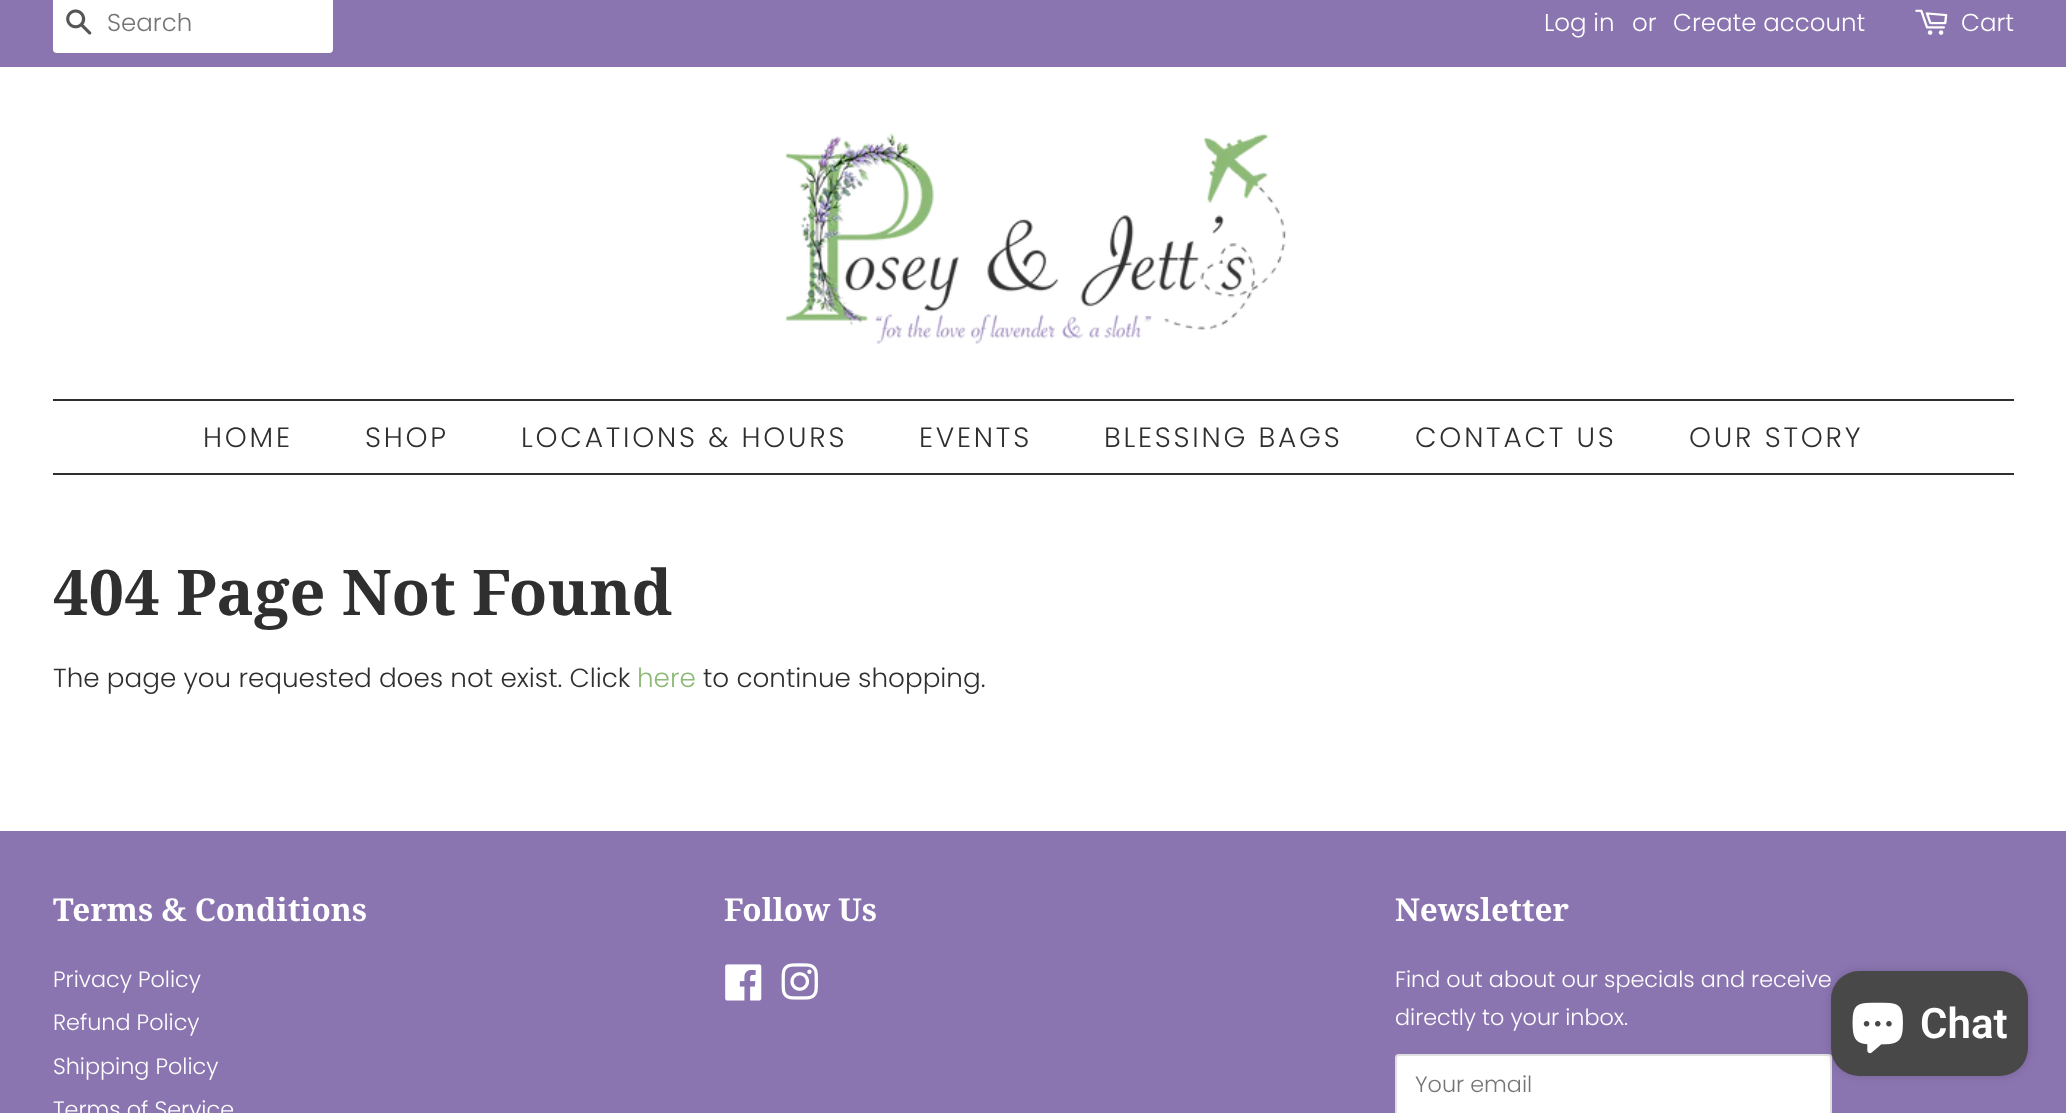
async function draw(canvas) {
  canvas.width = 2066;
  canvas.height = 1113;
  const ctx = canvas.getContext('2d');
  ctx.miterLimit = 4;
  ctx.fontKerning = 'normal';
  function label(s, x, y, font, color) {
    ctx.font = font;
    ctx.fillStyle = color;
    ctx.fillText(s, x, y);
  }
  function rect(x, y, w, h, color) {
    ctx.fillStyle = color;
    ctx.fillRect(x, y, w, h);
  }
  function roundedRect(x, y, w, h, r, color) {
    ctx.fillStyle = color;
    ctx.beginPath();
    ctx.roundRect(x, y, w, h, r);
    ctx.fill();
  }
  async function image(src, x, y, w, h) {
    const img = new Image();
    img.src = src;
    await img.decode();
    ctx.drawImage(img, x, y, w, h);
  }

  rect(0, 0, 2066, 1113, '#fff');
  rect(0, 0, 2066, 67, '#8b75b1');
  roundedRect(53, -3, 280, 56, 4, '#fff');
  await image('assets/img1.png', 66, 9, 26, 26);
  label('Search', 107, 31, '300 24.5px Poppins', '#757575');
  label('Log in', 1544, 31, '300 24.5px Poppins', '#fff');
  label('or', 1632, 31, '300 24.5px Poppins', '#fff');
  label('Create account', 1673, 31, '300 24.5px Poppins', '#fff');
  await image('assets/img2.png', 1915, 9, 33, 26);
  label('Cart', 1961, 31, '300 24.5px Poppins', '#fff');
  await image('assets/img3.png', 785, 133, 501, 211);
  rect(53, 399, 1961, 2, '#2f2f2f');
  rect(53, 473, 1961, 2, '#2f2f2f');
  ctx.letterSpacing = '2.75px';
  label('HOME', 203, 447, '300 28px Poppins', '#2f2f2f');
  label('SHOP', 365, 447, '300 28px Poppins', '#2f2f2f');
  label('LOCATIONS & HOURS', 521, 447, '300 28px Poppins', '#2f2f2f');
  label('EVENTS', 919, 447, '300 28px Poppins', '#2f2f2f');
  label('BLESSING BAGS', 1104, 447, '300 28px Poppins', '#2f2f2f');
  label('CONTACT US', 1415, 447, '300 28px Poppins', '#2f2f2f');
  label('OUR STORY', 1689, 447, '300 28px Poppins', '#2f2f2f');
  ctx.letterSpacing = '0px';
  label('404 Page Not Found', 53, 615, 'bold 63px Noto Serif', '#2f2f2f');
  label('The page you requested does not exist. Click', 53, 687, '300 26.25px Poppins', '#2f2f2f');
  label('here', 637, 687, '300 26.25px Poppins', '#8dba77');
  label('to continue shopping.', 703, 687, '300 26.25px Poppins', '#2f2f2f');
  rect(0, 831, 2066, 282, '#8b75b1');
  label('Terms & Conditions', 53, 921, 'bold 31.5px Noto Serif', '#fff');
  label('Privacy Policy', 53, 987, '300 22.3px Poppins', '#fff');
  label('Refund Policy', 53, 1030, '300 22.3px Poppins', '#fff');
  label('Shipping Policy', 53, 1074, '300 22.3px Poppins', '#fff');
  label('Terms of Service', 53, 1117, '300 22.3px Poppins', '#fff');
  label('Follow Us', 724, 921, 'bold 31.5px Noto Serif', '#fff');
  await image('assets/img4.png', 725, 964, 37, 37);
  await image('assets/img5.png', 781, 963, 37, 37);
  label('Newsletter', 1395, 921, 'bold 31.5px Noto Serif', '#fff');
  label('Find out about our specials and receive', 1395, 987, '300 22.3px Poppins', '#fff');
  label('directly to your inbox.', 1395, 1025, '300 22.3px Poppins', '#fff');
  roundedRect(1395, 1054, 437, 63, 4, '#fff');
  ctx.beginPath();
  ctx.roundRect(1396, 1055, 435, 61, 3);
  ctx.strokeStyle = '#2f2f2f26';
  ctx.lineWidth = 2;
  ctx.stroke();
  label('Your email', 1415, 1092, '300 22.3px Poppins', '#757575');
  ctx.fillStyle = '#00000026';
  ctx.filter = 'blur(4.5px)';
  ctx.beginPath();
  ctx.roundRect(1831, 971, 197, 105, 28);
  ctx.fill();
  ctx.filter = 'none';
  roundedRect(1831, 971, 197, 105, 28, '#494849');
  await image('assets/img6.png', 1852, 1002, 51, 52);
  label('Chat', 1920, 1038, '600 42px Roboto', '#fff');
}

draw(document.querySelector('canvas'));
